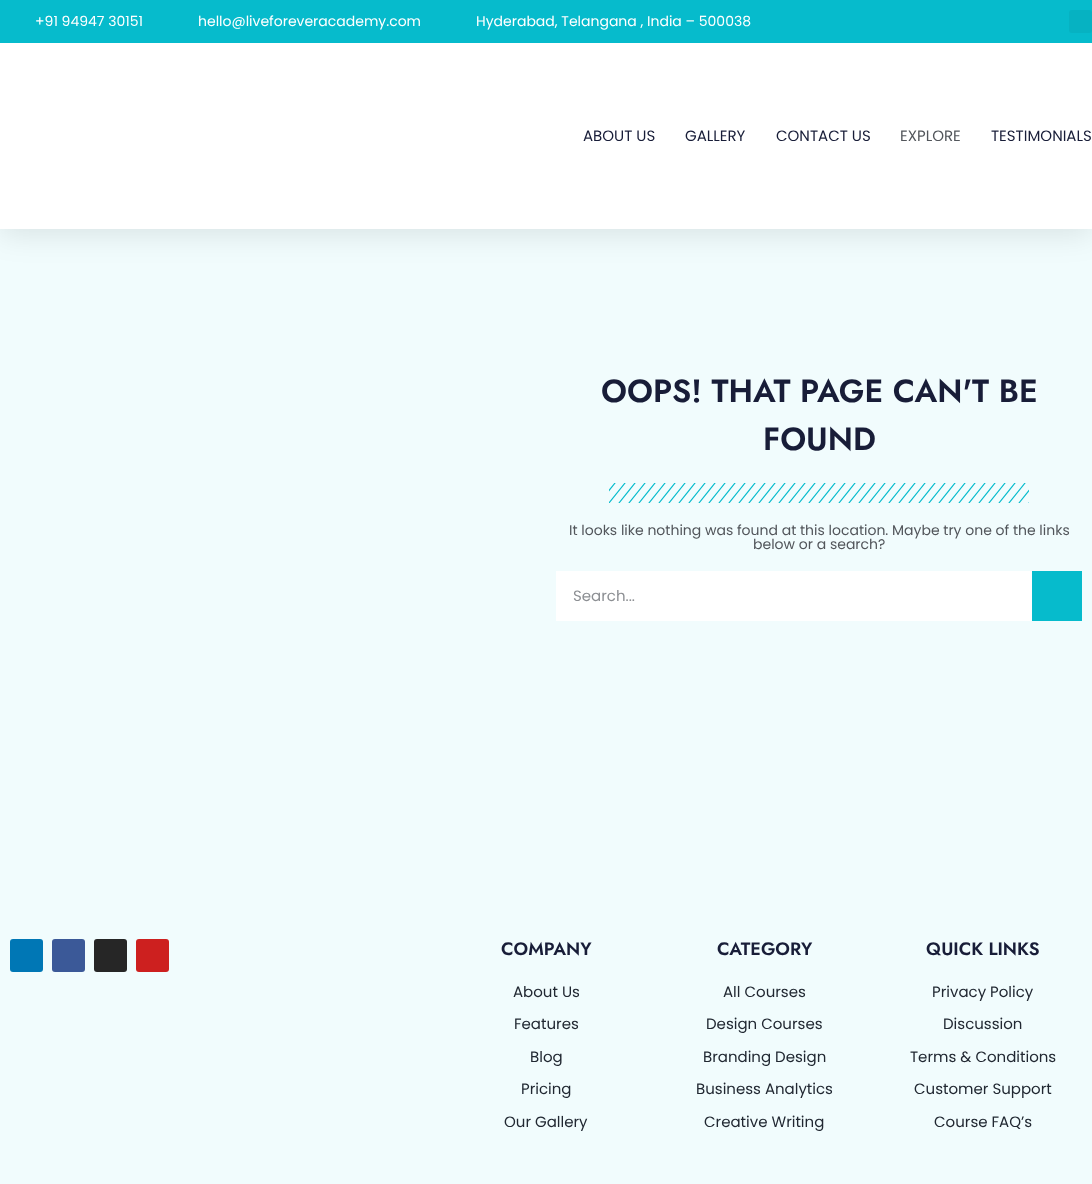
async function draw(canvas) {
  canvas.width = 1092;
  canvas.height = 1184;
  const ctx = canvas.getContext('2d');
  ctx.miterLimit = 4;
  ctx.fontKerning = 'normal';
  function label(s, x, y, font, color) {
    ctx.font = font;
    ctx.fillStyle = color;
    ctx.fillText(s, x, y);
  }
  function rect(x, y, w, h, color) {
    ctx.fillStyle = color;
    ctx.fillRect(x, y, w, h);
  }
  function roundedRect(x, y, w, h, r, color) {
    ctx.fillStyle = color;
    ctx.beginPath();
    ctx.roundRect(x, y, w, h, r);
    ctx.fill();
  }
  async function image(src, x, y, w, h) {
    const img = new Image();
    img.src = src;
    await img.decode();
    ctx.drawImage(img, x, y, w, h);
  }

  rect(0, 0, 1092, 1184, '#f1fcfd');
  ctx.fillStyle = '#0000001a';
  ctx.filter = 'blur(15px)';
  ctx.beginPath();
  ctx.rect(0, 5, 1092, 229);
  ctx.fill();
  ctx.filter = 'none';
  rect(0, 0, 1092, 43, '#06bbcc');
  label('+91 94947 30151', 35, 26, '14px Poppins', '#fff');
  label('hello@liveforeveracademy.com', 198, 26, '14px Poppins', '#fff');
  label('Hyderabad, Telangana , India – 500038', 476, 26, '14px Poppins', '#fff');
  roundedRect(1069, 10, 23, 23, 3, '#06b2c2');
  rect(0, 43, 1092, 186, '#fff');
  label('ABOUT US', 583, 141, '15px Poppins', '#181d38');
  label('GALLERY', 685, 141, '15px Poppins', '#181d38');
  label('CONTACT US', 776, 141, '15px Poppins', '#181d38');
  label('EXPLORE', 900, 141, '15px Poppins', '#52565b');
  label('TESTIMONIALS', 991, 141, '15px Poppins', '#181d38');
  label('OOPS! THAT PAGE CAN\'T BE', 601, 402, '600 32px Jost', '#181d38');
  label('FOUND', 763, 450, '600 32px Jost', '#181d38');
  await image('assets/img1.png', 609, 483, 420, 20);
  label('It looks like nothing was found at this location. Maybe try one of the links', 569, 535, '14px Poppins', '#52565b');
  label('below or a search?', 753, 549, '14px Poppins', '#52565b');
  rect(556, 571, 476, 50, '#fff');
  label('Search...', 573, 601, '15px Poppins', '#8c8f93');
  rect(1032, 571, 50, 50, '#06bbcc');
  roundedRect(10, 939, 33, 33, 3, '#0077b5');
  roundedRect(52, 939, 33, 33, 3, '#3b5998');
  roundedRect(94, 939, 33, 33, 3, '#262626');
  roundedRect(136, 939, 33, 33, 3, '#cd201f');
  label('COMPANY', 501, 955, '600 18px Jost', '#181d38');
  label('About Us', 513, 997, '15px Poppins', '#212832');
  label('Features', 514, 1029, '15px Poppins', '#212832');
  label('Blog', 530, 1062, '15px Poppins', '#212832');
  label('Pricing', 521, 1094, '15px Poppins', '#212832');
  label('Our Gallery', 504, 1127, '15px Poppins', '#212832');
  label('CATEGORY', 717, 955, '600 18px Jost', '#181d38');
  label('All Courses', 723, 997, '15px Poppins', '#212832');
  label('Design Courses', 706, 1029, '15px Poppins', '#212832');
  label('Branding Design', 703, 1062, '15px Poppins', '#212832');
  label('Business Analytics', 696, 1094, '15px Poppins', '#212832');
  label('Creative Writing', 704, 1127, '15px Poppins', '#212832');
  label('QUICK LINKS', 926, 955, '600 18px Jost', '#181d38');
  label('Privacy Policy', 932, 997, '15px Poppins', '#212832');
  label('Discussion', 943, 1029, '15px Poppins', '#212832');
  label('Terms & Conditions', 910, 1062, '15px Poppins', '#212832');
  label('Customer Support', 914, 1094, '15px Poppins', '#212832');
  label('Course FAQ’s', 934, 1127, '15px Poppins', '#212832');
}

draw(document.querySelector('canvas'));
